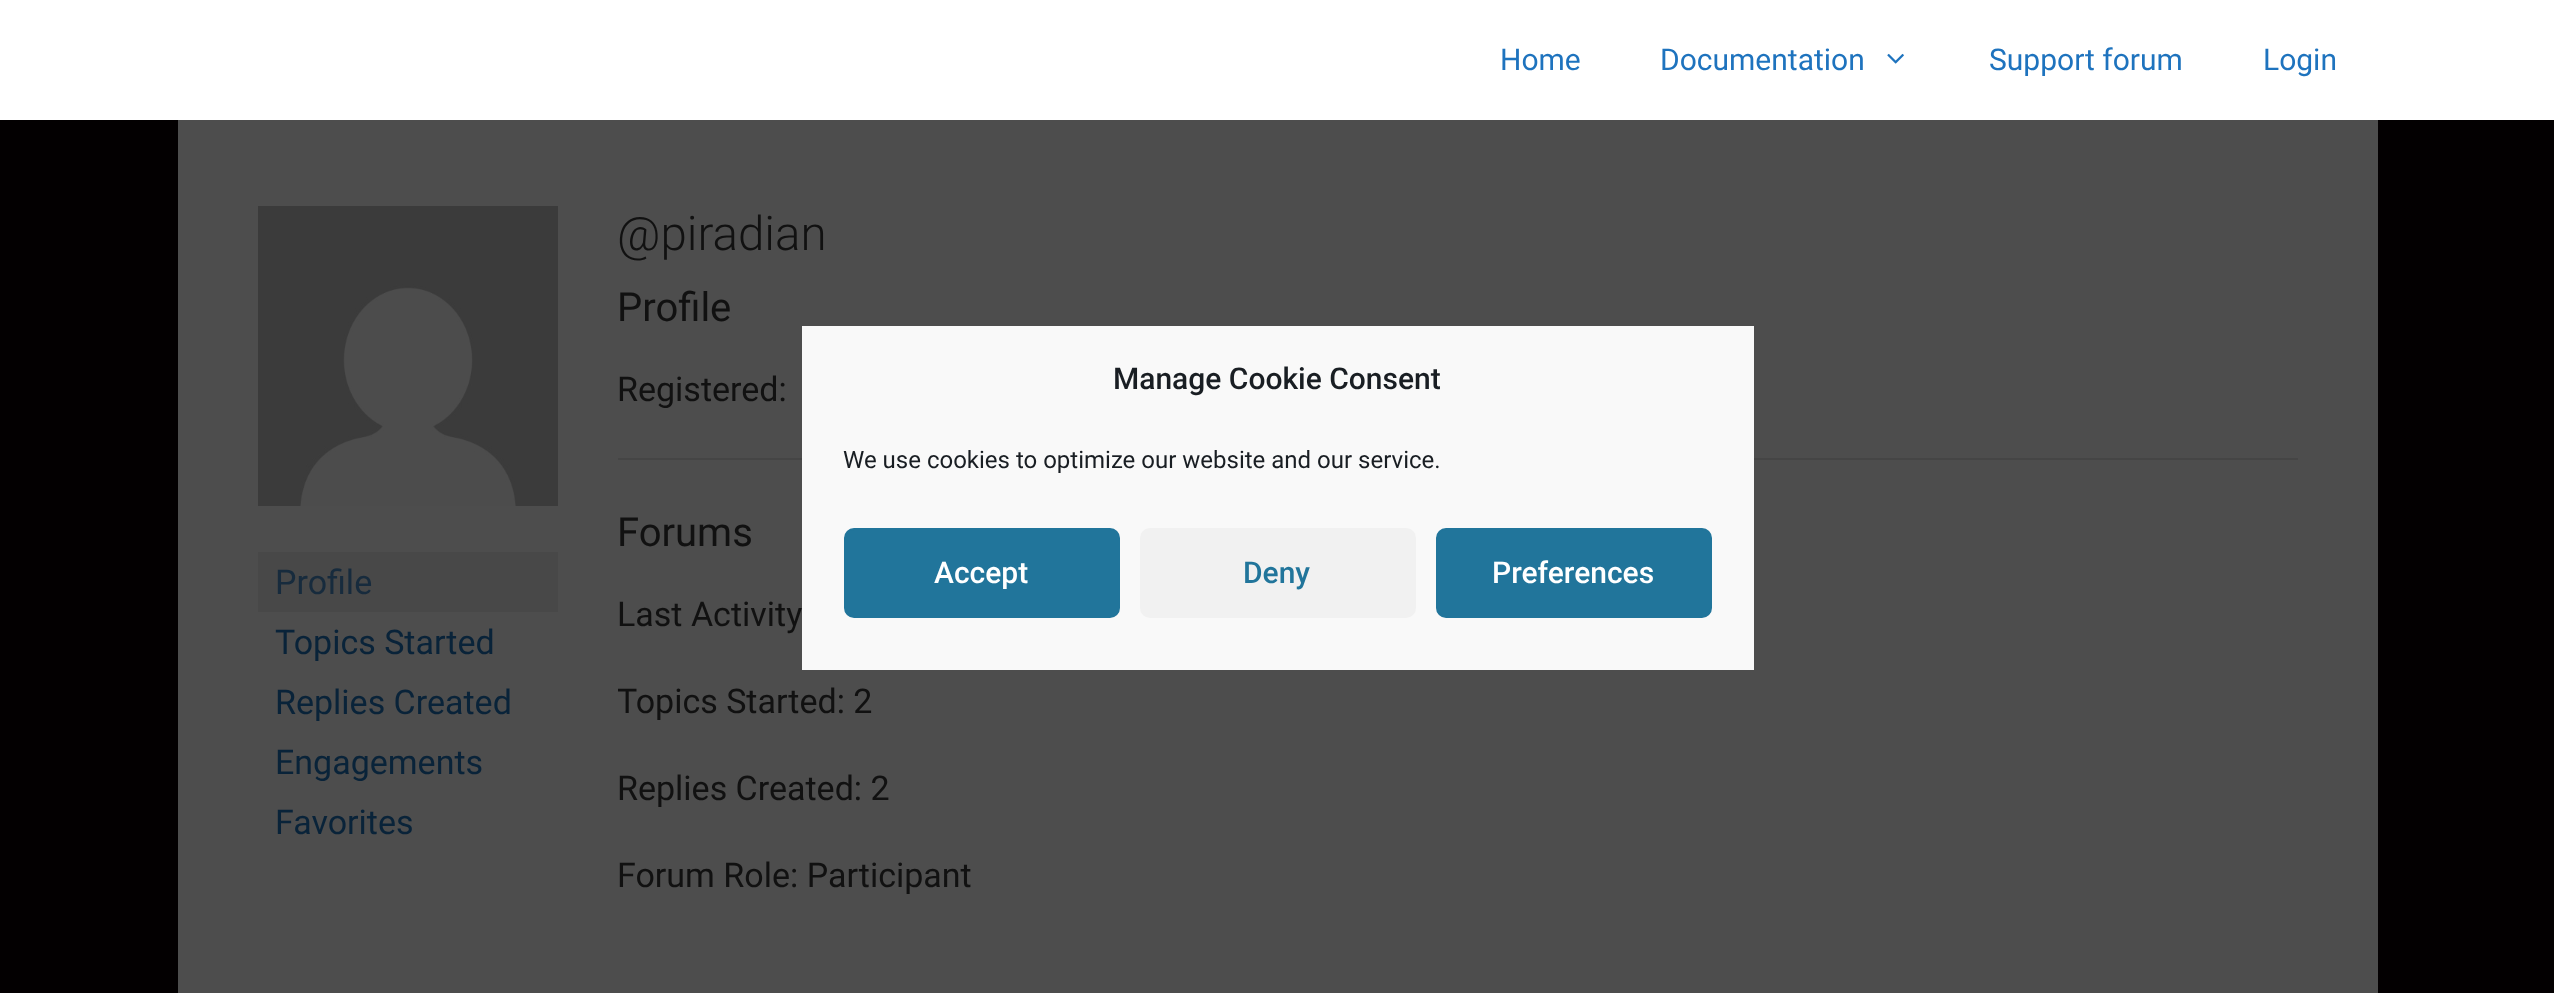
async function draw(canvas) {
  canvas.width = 2554;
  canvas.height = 993;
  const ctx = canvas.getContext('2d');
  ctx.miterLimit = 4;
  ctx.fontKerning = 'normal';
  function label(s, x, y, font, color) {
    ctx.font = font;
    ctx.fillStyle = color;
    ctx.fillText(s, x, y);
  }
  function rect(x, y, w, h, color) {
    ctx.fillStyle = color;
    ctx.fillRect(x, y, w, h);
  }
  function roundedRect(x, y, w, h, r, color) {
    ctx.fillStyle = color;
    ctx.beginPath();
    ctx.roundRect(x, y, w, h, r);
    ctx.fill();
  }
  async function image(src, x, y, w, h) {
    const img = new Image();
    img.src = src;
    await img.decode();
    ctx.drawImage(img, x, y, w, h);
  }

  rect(0, 0, 2554, 993, '#030001');
  rect(0, 0, 2554, 120, '#fff');
  label('Home', 1500, 70, '30px Roboto', '#1e73be');
  label('Documentation', 1660, 70, '30px Roboto', '#1e73be');
  await image('assets/img1.png', 1887, 53, 17, 11);
  label('Support forum', 1989, 70, '30px Roboto', '#1e73be');
  label('Login', 2263, 70, '30px Roboto', '#1e73be');
  rect(178, 120, 2200, 873, '#4d4d4d');
  await image('assets/img2.png', 258, 206, 300, 300);
  rect(258, 552, 300, 60, '#484848');
  label('Profile', 275, 594, '34px Roboto', '#172b3d');
  label('Topics Started', 275, 654, '34px Roboto', '#092339');
  label('Replies Created', 275, 714, '34px Roboto', '#092339');
  label('Engagements', 275, 774, '34px Roboto', '#092339');
  label('Favorites', 275, 834, '34px Roboto', '#092339');
  label('@piradian', 617, 250, '300 47.5px Roboto', '#111');
  label('Profile', 617, 321, '40px Roboto', '#111');
  label('Registered:', 617, 401, '34px Roboto', '#111');
  rect(618, 458, 1680, 2, '#454545');
  label('Forums', 617, 546, '40px Roboto', '#111');
  label('Last Activity', 617, 626, '34px Roboto', '#111');
  ctx.save();
  ctx.beginPath();
  ctx.rect(618, 284, 1680, 660);
  ctx.clip();
  label('Topics Started: 2', 617, 713, '34px Roboto', '#111');
  ctx.restore();
  label('Replies Created: 2', 617, 800, '34px Roboto', '#111');
  label('Forum Role: Participant', 617, 887, '34px Roboto', '#111');
  rect(802, 326, 952, 344, '#f9f9f9');
  label('Manage Cookie Consent', 1113, 389, '500 30px Roboto', '#191e23');
  label('We use cookies to optimize our website and our service.', 843, 468, '24px Roboto', '#191e23');
  ctx.fillStyle = '#21759b';
  ctx.beginPath();
  ctx.roundRect(845, 529, 274, 88, 9);
  ctx.fill();
  ctx.strokeStyle = '#21759b';
  ctx.lineWidth = 2;
  ctx.stroke();
  label('Accept', 934, 583, '500 30px Roboto', '#fff');
  roundedRect(1140, 528, 276, 90, 10, '#f1f1f1');
  label('Deny', 1243, 583, '500 30px Roboto', '#21759b');
  ctx.beginPath();
  ctx.roundRect(1437, 529, 274, 88, 9);
  ctx.fill();
  ctx.stroke();
  label('Preferences', 1492, 583, '500 30px Roboto', '#fff');
}

draw(document.querySelector('canvas'));
